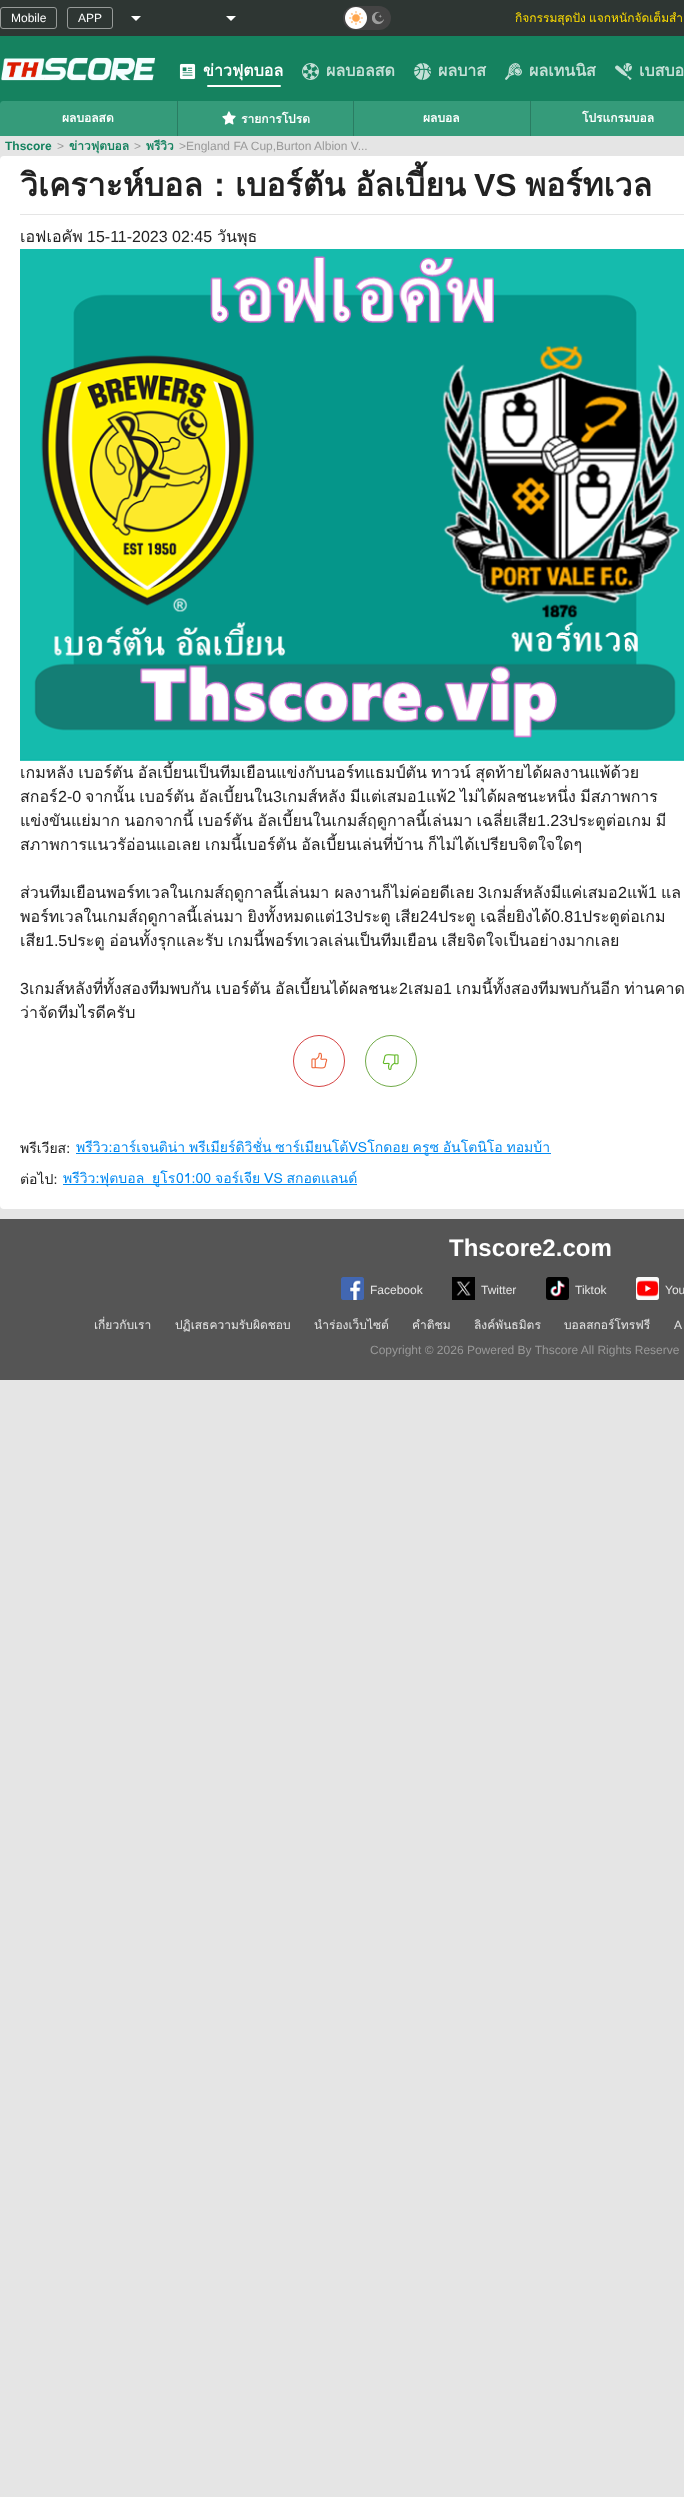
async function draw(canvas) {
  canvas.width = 684;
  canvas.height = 2497;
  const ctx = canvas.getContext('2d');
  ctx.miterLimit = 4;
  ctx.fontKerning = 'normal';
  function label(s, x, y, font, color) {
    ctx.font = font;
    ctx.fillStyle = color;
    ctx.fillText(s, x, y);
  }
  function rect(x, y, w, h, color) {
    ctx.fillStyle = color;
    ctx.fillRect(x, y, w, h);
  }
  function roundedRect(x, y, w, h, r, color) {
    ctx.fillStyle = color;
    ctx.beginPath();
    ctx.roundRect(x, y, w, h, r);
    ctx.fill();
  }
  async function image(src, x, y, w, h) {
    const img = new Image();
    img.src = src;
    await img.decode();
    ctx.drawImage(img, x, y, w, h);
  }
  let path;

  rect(0, 0, 684, 2497, '#e5e5e5');
  rect(0, 36, 684, 68, '#15825f');
  rect(0, 0, 684, 36, '#2e3633');
  ctx.beginPath();
  ctx.roundRect(0.5, 7.5, 56, 21, 2.5);
  ctx.strokeStyle = '#979b99';
  ctx.stroke();
  label('Mobile', 11, 22, '12px Liberation Sans', '#fff');
  ctx.beginPath();
  ctx.roundRect(67.5, 7.5, 45, 21, 2.5);
  ctx.stroke();
  label('APP', 78, 22, '12px Liberation Sans', '#fff');
  path = new Path2D('M131 16H141L136 21Z');
  ctx.fill(path);
  path = new Path2D('M226 16H236L231 21Z');
  ctx.fill(path);
  roundedRect(343, 6, 48, 24, 12, '#444');
  await image('assets/img1.png', 372, 11, 12, 14);
  ctx.fillStyle = '#fff';
  ctx.beginPath();
  ctx.arc(356, 18, 11, 0, 2 * Math.PI);
  ctx.fill();
  await image('assets/img2.png', 349, 11, 14, 14);
  ctx.save();
  ctx.beginPath();
  ctx.rect(515, 0, 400, 36);
  ctx.clip();
  ctx.wordSpacing = '-1px';
  label('กิจกรรมสุดปัง แจกหนักจัดเต็มสำ', 515, 22, '12px Loma', '#ffde00');
  ctx.restore();
  await image('assets/img3.png', 1, 57, 155, 24);
  await image('assets/img4.png', 179, 63, 17, 17);
  label('ข่าวฟุตบอล', 203, 76, 'bold 16px Loma', '#fff');
  roundedRect(207, 85, 74, 2, 1, '#fff');
  await image('assets/img5.png', 302, 63, 17, 17);
  label('ผลบอลสด', 326, 76, 'bold 16px Loma', '#c5e0d7');
  await image('assets/img6.png', 414, 63, 17, 17);
  label('ผลบาส', 438, 76, 'bold 16px Loma', '#c5e0d7');
  await image('assets/img7.png', 505, 63, 17, 17);
  label('ผลเทนนิส', 529, 76, 'bold 16px Loma', '#c5e0d7');
  await image('assets/img8.png', 615, 63, 17, 17);
  label('เบสบอ', 639, 76, 'bold 16px Loma', '#c5e0d7');
  ctx.fillStyle = '#359b7a';
  path = new Path2D('M3 101H684C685.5 101 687 102.5 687 104V136H0V104C0 102.5 1.5 101 3 101Z');
  ctx.fill(path);
  rect(177, 101, 1, 35, '#2a7c62');
  label('ผลบอลสด', 62, 122, 'bold 12px Loma', '#fff');
  rect(353, 101, 1, 35, '#2a7c62');
  await image('assets/img9.png', 222, 111, 14, 14);
  label('รายการโปรด', 241, 123, 'bold 12px Loma', '#fff');
  rect(530, 101, 1, 35, '#2a7c62');
  label('ผลบอล', 423, 122, 'bold 12px Loma', '#fff');
  label('โปรแกรมบอล', 582, 122, 'bold 12px Loma', '#fff');
  label('Thscore', 5, 150, 'bold 12px Liberation Sans', '#15825f');
  label('>', 57, 150, '12px Liberation Sans', '#999');
  label('ข่าวฟุตบอล', 69, 150, 'bold 12px Loma', '#15825f');
  label('>', 134, 150, '12px Liberation Sans', '#999');
  label('พรีวิว', 146, 150, 'bold 12px Loma', '#15825f');
  label('>England FA Cup,Burton Albion V...', 179, 150, '12px Liberation Sans', '#999');
  roundedRect(0, 156, 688, 1053, 4, '#fff');
  rect(20, 214, 664, 1, '#e5e5e5');
  label('วิเคราะห์บอล', 20, 196, 'bold 32px Loma', '#222');
  label('：', 203, 196, 'bold 32px WenQuanYi Zen Hei', '#222');
  ctx.wordSpacing = '-1px';
  label('เบอร์ตัน อัลเบี้ยน', 235, 196, 'bold 32px Loma', '#222');
  ctx.wordSpacing = '0px';
  label('VS', 474, 196, 'bold 32px Liberation Sans', '#222');
  label('พอร์ทเวล', 525, 196, 'bold 32px Loma', '#222');
  label('เอฟเอคัพ', 20, 242, '16px Loma', '#222');
  label('15-11-2023 02:45', 87, 242, '16px Liberation Sans', '#222');
  label('วันพุธ', 217, 242, '16px Loma', '#222');
  await image('assets/img10.png', 20, 249, 664, 512);
  ctx.wordSpacing = '-1px';
  label('เกมหลัง เบอร์ตัน อัลเบี้ยนเป็นทีมเยือนแข่งกับนอร์ทแธมป์ตัน ทาวน์ สุดท้ายได้ผลงานแพ้ด้วย', 20, 778, '16px Loma', '#222');
  ctx.wordSpacing = '0px';
  label('สกอร์', 20, 802, '16px Loma', '#222');
  label('2-0', 58, 802, '16px Liberation Sans', '#222');
  ctx.wordSpacing = '-1px';
  label('จากนั้น เบอร์ตัน อัลเบี้ยนใน', 85, 802, '16px Loma', '#222');
  ctx.wordSpacing = '0px';
  label('3', 273, 802, '16px Liberation Sans', '#222');
  ctx.wordSpacing = '-1px';
  label('เกมส์หลัง มีแต่เสมอ', 282, 802, '16px Loma', '#222');
  ctx.wordSpacing = '0px';
  label('1', 417, 802, '16px Liberation Sans', '#222');
  label('แพ้', 426, 802, '16px Loma', '#222');
  label('2', 447, 802, '16px Liberation Sans', '#222');
  ctx.wordSpacing = '-1px';
  label('ไม่ได้ผลชนะหนึ่ง มีสภาพการ', 460, 802, '16px Loma', '#222');
  label('แข่งขันแย่มาก นอกจากนี้ เบอร์ตัน อัลเบี้ยนในเกมส์ฤดูกาลนี้เล่นมา เฉลี่ยเสีย', 20, 826, '16px Loma', '#222');
  ctx.wordSpacing = '0px';
  label('1.23', 537, 826, '16px Liberation Sans', '#222');
  ctx.wordSpacing = '-1px';
  label('ประตูต่อเกม มี', 568, 826, '16px Loma', '#222');
  label('สภาพการแนวรัอ่อนแอเลย เกมนี้เบอร์ตัน อัลเบี้ยนเล่นที่บ้าน ก็ไม่ได้เปรียบจิตใจใดๆ', 20, 850, '16px Loma', '#222');
  ctx.wordSpacing = '0px';
  label('ส่วนทีมเยือนพอร์ทเวลในเกมส์ฤดูกาลนี้เล่นมา ผลงานก็ไม่ค่อยดีเลย', 20, 898, '16px Loma', '#222');
  label('3', 478, 898, '16px Liberation Sans', '#222');
  label('เกมส์หลังมีแค่เสมอ', 487, 898, '16px Loma', '#222');
  label('2', 618, 898, '16px Liberation Sans', '#222');
  label('แพ้', 627, 898, '16px Loma', '#222');
  label('1', 648, 898, '16px Liberation Sans', '#222');
  label('แล', 661, 898, '16px Loma', '#222');
  ctx.wordSpacing = '-1px';
  label('พอร์ทเวลในเกมส์ฤดูกาลนี้เล่นมา ยิงทั้งหมดแต่', 20, 922, '16px Loma', '#222');
  ctx.wordSpacing = '0px';
  label('13', 335, 922, '16px Liberation Sans', '#222');
  ctx.wordSpacing = '-1px';
  label('ประตู เสีย', 353, 922, '16px Loma', '#222');
  ctx.wordSpacing = '0px';
  label('24', 420, 922, '16px Liberation Sans', '#222');
  ctx.wordSpacing = '-1px';
  label('ประตู เฉลี่ยยิงได้', 438, 922, '16px Loma', '#222');
  ctx.wordSpacing = '0px';
  label('0.81', 551, 922, '16px Liberation Sans', '#222');
  label('ประตูต่อเกม', 582, 922, '16px Loma', '#222');
  label('เสีย', 20, 946, '16px Loma', '#222');
  label('1.5', 45, 946, '16px Liberation Sans', '#222');
  ctx.wordSpacing = '-1px';
  label('ประตู อ่อนทั้งรุกและรับ เกมนี้พอร์ทเวลเล่นเป็นทีมเยือน เสียจิตใจเป็นอย่างมากเลย', 67, 946, '16px Loma', '#222');
  ctx.wordSpacing = '0px';
  label('3', 20, 994, '16px Liberation Sans', '#222');
  ctx.wordSpacing = '-1px';
  label('เกมส์หลังที่ทั้งสองทีมพบกัน เบอร์ตัน อัลเบี้ยนได้ผลชนะ', 29, 994, '16px Loma', '#222');
  ctx.wordSpacing = '0px';
  label('2', 399, 994, '16px Liberation Sans', '#222');
  label('เสมอ', 408, 994, '16px Loma', '#222');
  label('1', 443, 994, '16px Liberation Sans', '#222');
  ctx.wordSpacing = '-1px';
  label('เกมนี้ทั้งสองทีมพบกันอีก ท่านคาด', 456, 994, '16px Loma', '#222');
  ctx.wordSpacing = '0px';
  label('ว่าจัดทีมไรดีครับ', 20, 1018, '16px Loma', '#222');
  ctx.beginPath();
  ctx.arc(319, 1061, 25.5, 0, 2 * Math.PI);
  ctx.strokeStyle = '#d64444';
  ctx.stroke();
  await image('assets/img11.png', 311, 1052, 17, 17);
  ctx.beginPath();
  ctx.arc(391, 1061, 25.5, 0, 2 * Math.PI);
  ctx.strokeStyle = '#71ab49';
  ctx.stroke();
  await image('assets/img12.png', 382, 1054, 17, 16);
  label('พรีเวียส:', 20, 1153, '14px Loma', '#222');
  rect(76, 1153, 475, 1, '#0089f1');
  ctx.wordSpacing = '-1px';
  label('พรีวิว:อาร์เจนติน่า พรีเมียร์ดิวิชั่น ซาร์เมียนโต้VSโกดอย ครูซ อันโตนิโอ ทอมบ้า', 76, 1152, '14px Loma', '#0089f1');
  ctx.wordSpacing = '0px';
  label('ต่อไป:', 20, 1184, '14px Loma', '#222');
  rect(63, 1184, 294, 1, '#0089f1');
  ctx.wordSpacing = '3px';
  label('พรีวิว:ฟุตบอล ยูโร', 63, 1183, '14px Loma', '#0089f1');
  ctx.wordSpacing = '0px';
  label('01:00', 176, 1183, '14px Loma', '#0089f1');
  ctx.wordSpacing = '-1px';
  label('จอร์เจีย VS สกอตแลนด์', 215, 1183, '14px Loma', '#0089f1');
  rect(0, 1219, 684, 161, '#555');
  ctx.wordSpacing = '0px';
  label('Thscore2.com', 449, 1256, 'bold 24px Liberation Sans', '#fff');
  await image('assets/img13.png', 341, 1277, 23, 23);
  label('Facebook', 370, 1294, '12px Liberation Sans', '#e5e5e5');
  await image('assets/img14.png', 452, 1277, 23, 23);
  label('Twitter', 481, 1294, '12px Liberation Sans', '#e5e5e5');
  await image('assets/img15.png', 546, 1277, 23, 23);
  label('Tiktok', 575, 1294, '12px Liberation Sans', '#e5e5e5');
  await image('assets/img16.png', 636, 1277, 23, 23);
  label('You', 665, 1294, '12px Liberation Sans', '#e5e5e5');
  label('เกี่ยวกับเรา', 94, 1329, '12px Loma', '#e5e5e5');
  label('ปฏิเสธความรับผิดชอบ', 175, 1329, '12px Loma', '#e5e5e5');
  label('นำร่องเว็บไซต์', 314, 1329, '12px Loma', '#e5e5e5');
  label('คำติชม', 412, 1329, '12px Loma', '#e5e5e5');
  label('ลิงค์พันธมิตร', 474, 1329, '12px Loma', '#e5e5e5');
  label('บอลสกอร์โทรฟรี', 564, 1329, '12px Loma', '#e5e5e5');
  label('A', 674, 1329, '12px Liberation Sans', '#e5e5e5');
  label('Copyright © 2026 Powered By Thscore All Rights Reserve', 370, 1354, '12px Liberation Sans', '#999');
}

draw(document.querySelector('canvas'));
